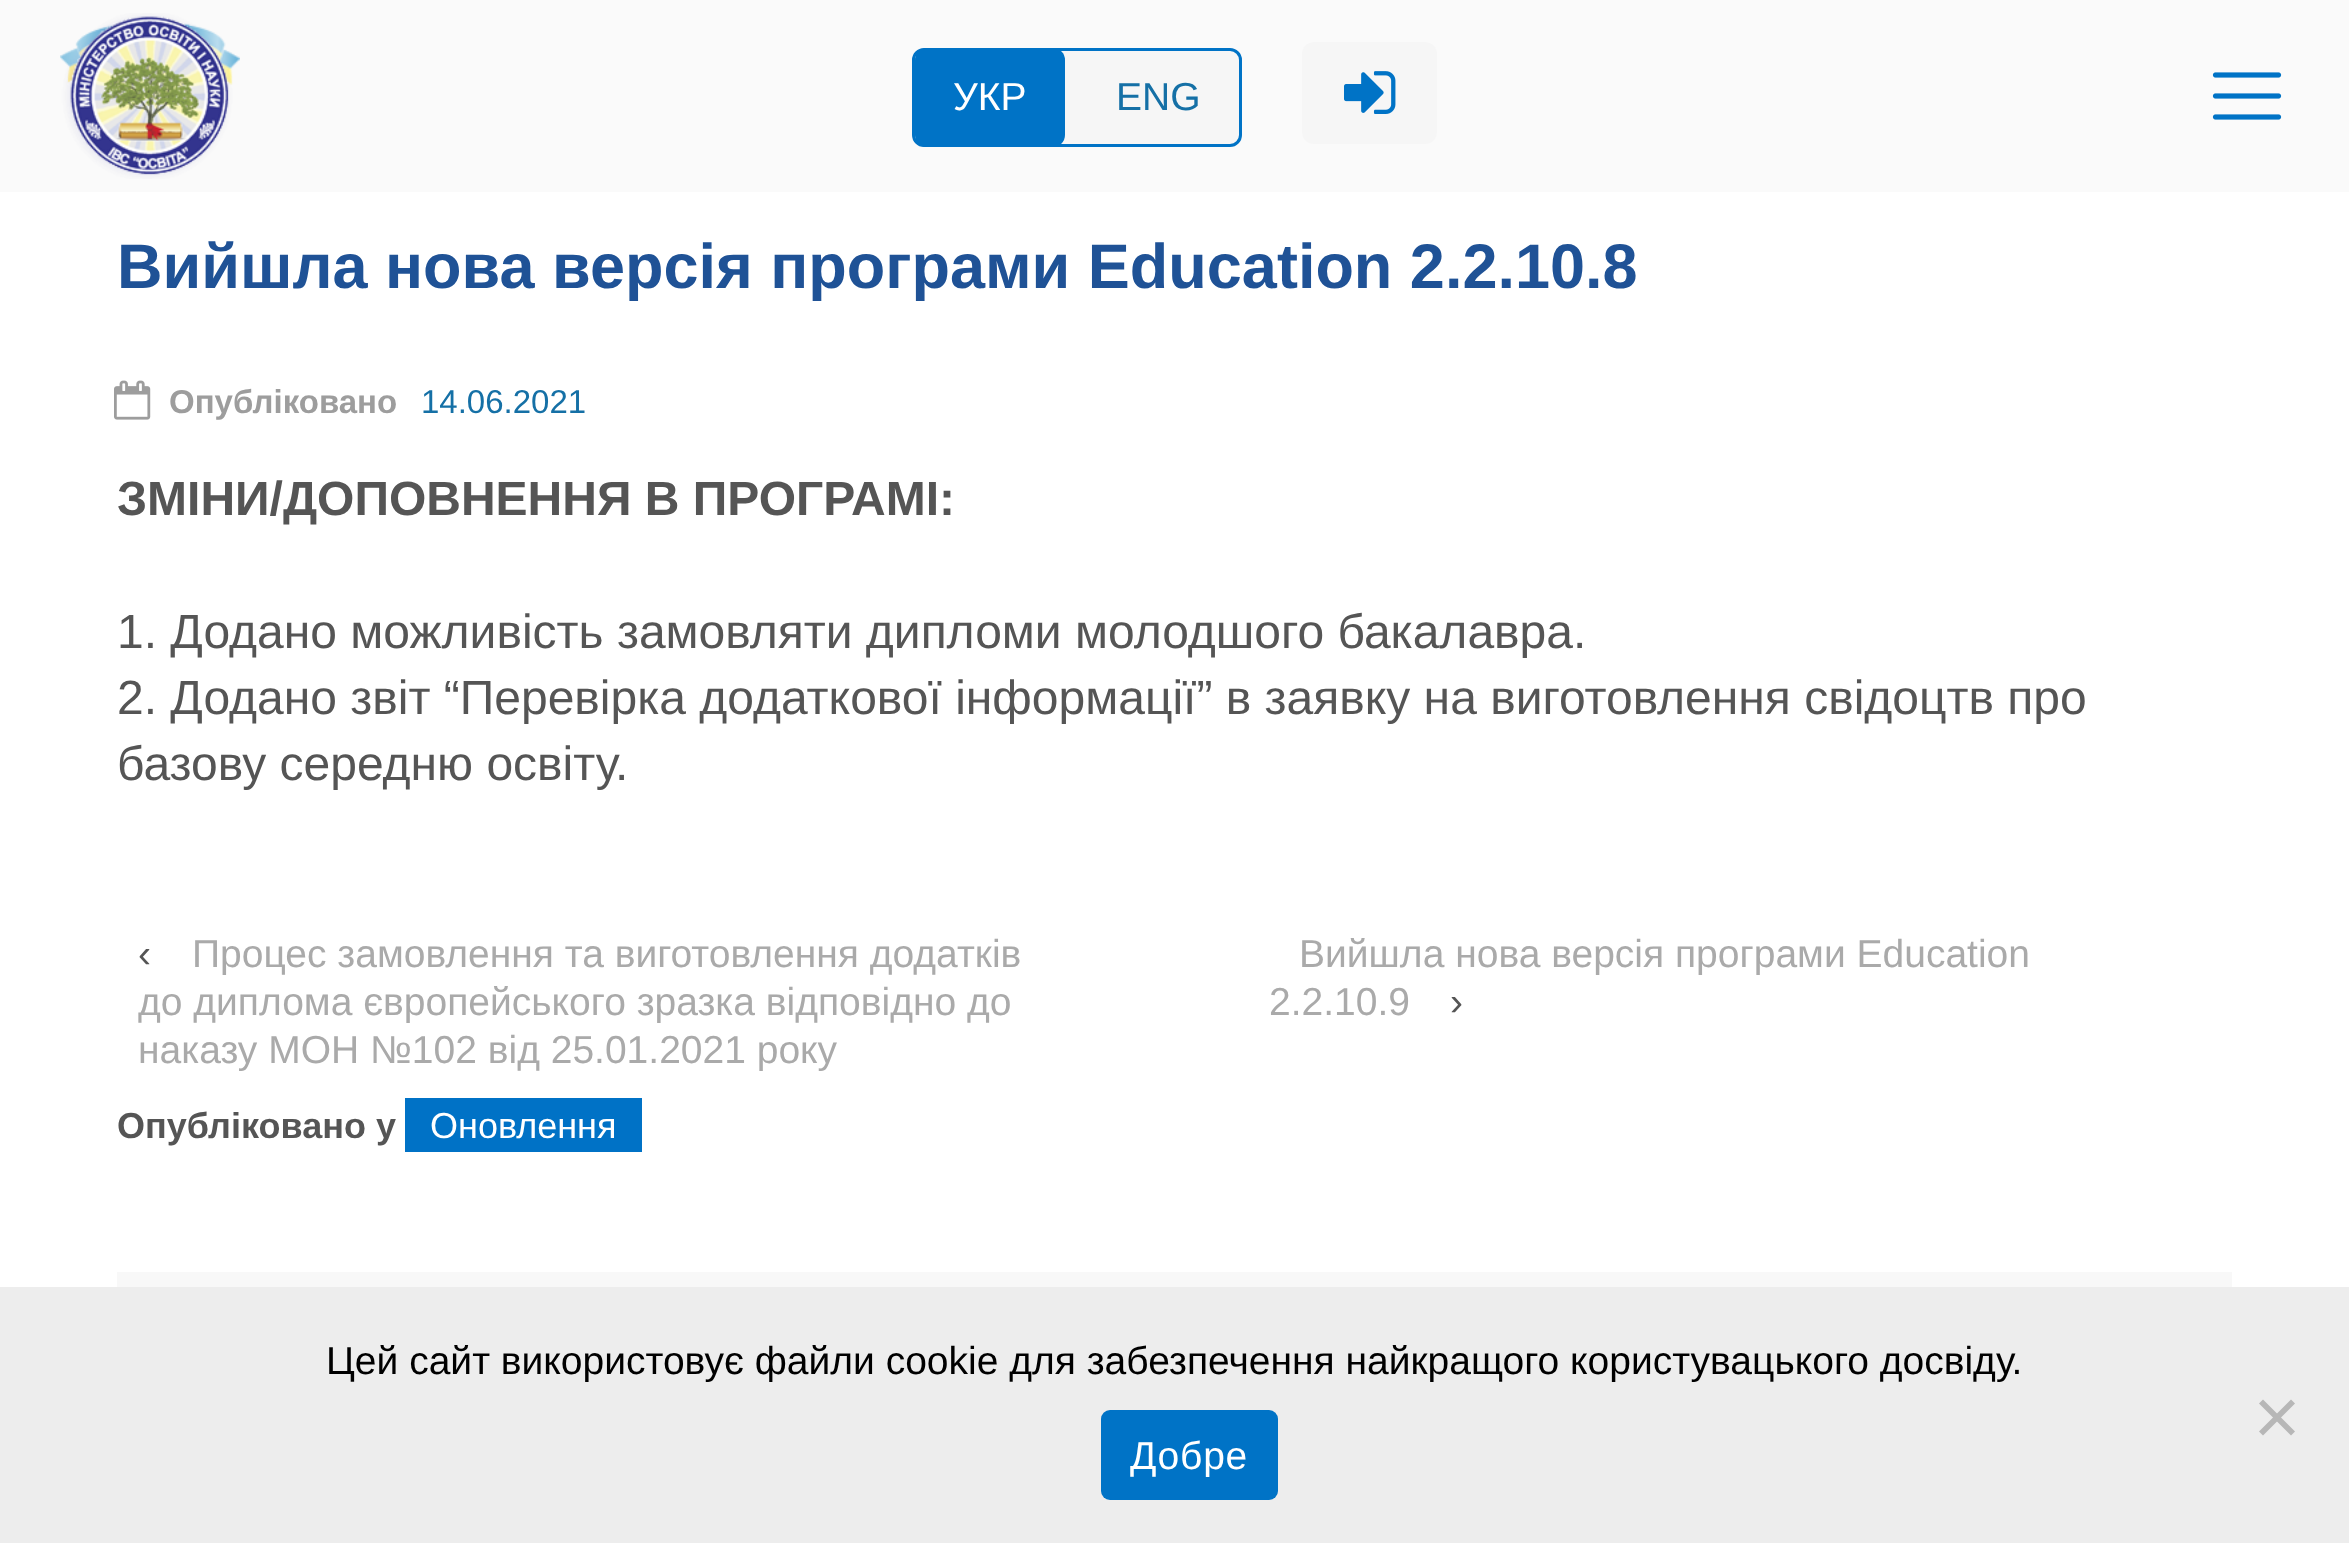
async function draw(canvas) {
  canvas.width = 2349;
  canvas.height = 1543;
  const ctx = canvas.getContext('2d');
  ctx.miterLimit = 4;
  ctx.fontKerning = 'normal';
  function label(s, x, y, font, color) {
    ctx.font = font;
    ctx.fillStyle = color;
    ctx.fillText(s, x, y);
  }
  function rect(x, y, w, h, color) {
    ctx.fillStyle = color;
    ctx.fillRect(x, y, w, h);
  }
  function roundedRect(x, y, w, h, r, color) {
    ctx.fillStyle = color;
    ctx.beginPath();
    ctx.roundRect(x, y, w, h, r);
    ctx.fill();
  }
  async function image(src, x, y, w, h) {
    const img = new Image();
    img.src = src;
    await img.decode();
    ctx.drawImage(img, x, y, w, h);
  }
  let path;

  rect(0, 0, 2349, 1543, '#fff');
  rect(0, 0, 2349, 192, '#fafafa');
  await image('assets/img1.png', 60, 13, 180, 166);
  ctx.fillStyle = '#f6f6f6';
  ctx.beginPath();
  ctx.roundRect(913.5, 49.5, 327, 96, 10.5);
  ctx.fill();
  ctx.strokeStyle = '#0073c6';
  ctx.lineWidth = 3;
  ctx.stroke();
  roundedRect(915, 48, 150, 99, 12, '#0073c6');
  label('УКР', 953, 110, '39px Liberation Sans', '#fff');
  label('ENG', 1116, 110, '39px Liberation Sans', '#1570a6');
  roundedRect(1302, 42, 135, 102, 12, '#f6f6f6');
  await image('assets/img2.png', 1344, 71, 52, 43);
  await image('assets/img3.png', 2212, 72, 70, 48);
  label('Вийшла нова версія програми Education 2.2.10.8', 117, 288, 'bold 63px Liberation Sans', '#1f5296');
  await image('assets/img4.png', 114, 380, 37, 40);
  label('Опубліковано', 169, 413, 'bold 33px Liberation Sans', '#9d9d9d');
  label('14.06.2021', 421, 413, '33px Liberation Sans', '#1570a6');
  label('ЗМІНИ/ДОПОВНЕННЯ В ПРОГРАМІ:', 117, 515, 'bold 48px Liberation Sans', '#555');
  label('1. Додано можливість замовляти дипломи молодшого бакалавра.', 117, 648, '48px Liberation Sans', '#555');
  label('2. Додано звіт “Перевірка додаткової інформації” в заявку на виготовлення свідоцтв про', 117, 714, '48px Liberation Sans', '#555');
  label('базову середню освіту.', 117, 780, '48px Liberation Sans', '#555');
  label('‹', 138, 967, '39px Liberation Sans', '#555');
  label('Процес замовлення та виготовлення додатків', 192, 967, '39px Liberation Sans', '#aaa');
  label('до диплома європейського зразка відповідно до', 138, 1015, '39px Liberation Sans', '#aaa');
  label('наказу МОН №102 від 25.01.2021 року', 138, 1063, '39px Liberation Sans', '#aaa');
  label('Вийшла нова версія програми Education', 1299, 967, '39px Liberation Sans', '#aaa');
  label('2.2.10.9', 1269, 1015, '39px Liberation Sans', '#aaa');
  label('›', 1450, 1015, '39px Liberation Sans', '#555');
  label('Опубліковано у', 117, 1138, 'bold 36px Liberation Sans', '#555');
  rect(405, 1098, 237, 54, '#0072c6');
  label('Оновлення', 430, 1138, '36px Liberation Sans', '#fff');
  rect(117, 1272, 2115, 15, '#f8f8f8');
  rect(0, 1287, 2349, 256, '#ededed');
  label('Цей сайт використовує файли cookie для забезпечення найкращого користувацького досвіду.', 326, 1374, '39px Liberation Sans', '#000');
  ctx.fillStyle = '#b7b7b7';
  path = new Path2D('M2291 1399.5L2295 1403.5L2263 1435.5L2259 1431.5Z');
  ctx.fill(path);
  path = new Path2D('M2259 1403.5L2263 1399.5L2295 1431.5L2291 1435.5Z');
  ctx.fill(path);
  roundedRect(1101, 1410, 177, 90, 9, '#0073c6');
  ctx.letterSpacing = '0.75px';
  label('Добре', 1130, 1469, '39px Liberation Sans', '#fff');
}

draw(document.querySelector('canvas'));
